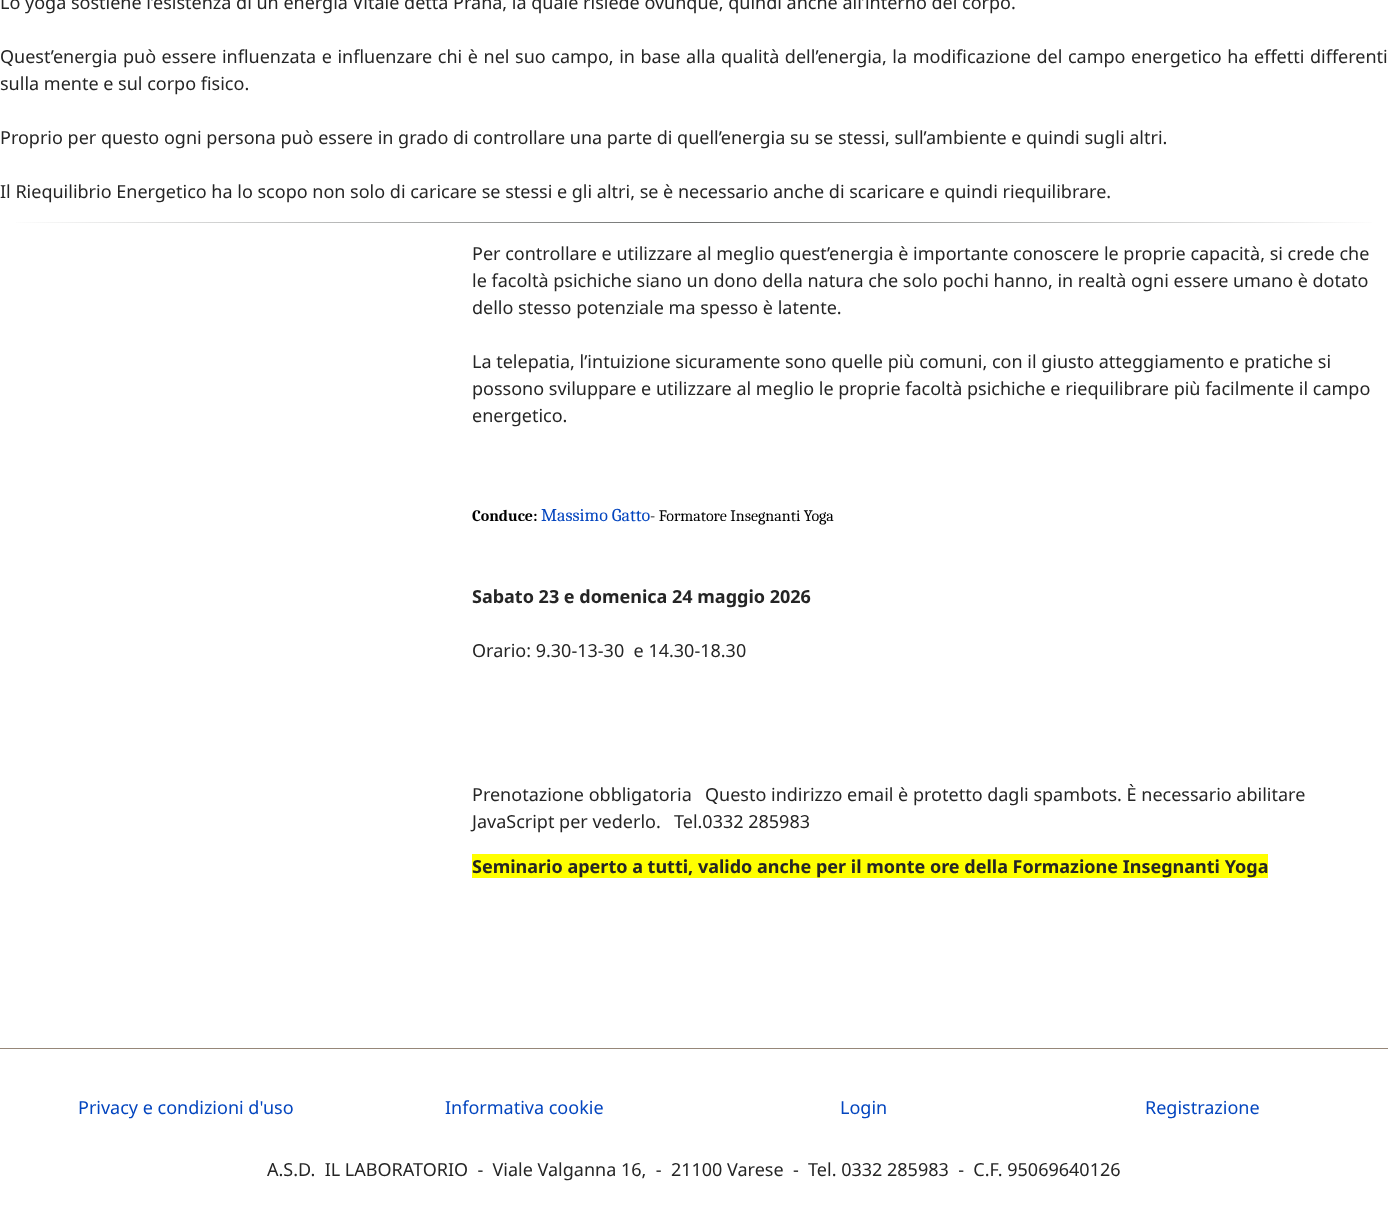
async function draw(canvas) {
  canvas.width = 1388;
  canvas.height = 1224;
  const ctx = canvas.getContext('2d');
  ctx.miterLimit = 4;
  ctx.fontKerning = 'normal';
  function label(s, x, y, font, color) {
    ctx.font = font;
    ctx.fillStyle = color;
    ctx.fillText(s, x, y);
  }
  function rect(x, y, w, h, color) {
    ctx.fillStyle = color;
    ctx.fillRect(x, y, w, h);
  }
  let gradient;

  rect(0, 0, 1388, 1224, '#fff');
  label('Lo yoga sostiene l’esistenza di un energia Vitale detta Prana, la quale risiede ovunque, quindi anche all’interno del corpo.', 0, 9, '18px Noto Sans', '#252525');
  ctx.wordSpacing = '0.9px';
  label('Quest’energia può essere influenzata e influenzare chi è nel suo campo, in base alla qualità dell’energia, la modificazione del campo energetico ha effetti differenti', 0, 63, '18px Noto Sans', '#252525');
  ctx.wordSpacing = '0px';
  label('sulla mente e sul corpo fisico.', 0, 90, '18px Noto Sans', '#252525');
  label('Proprio per questo ogni persona può essere in grado di controllare una parte di quell’energia su se stessi, sull’ambiente e quindi sugli altri.', 0, 144, '18px Noto Sans', '#252525');
  label('Il Riequilibrio Energetico ha lo scopo non solo di caricare se stessi e gli altri, se è necessario anche di scaricare e quindi riequilibrare.', 0, 198, '18px Noto Sans', '#252525');
  gradient = ctx.createLinearGradient(301, -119, 1087, 564);
  gradient.addColorStop(0, '#fff');
  gradient.addColorStop(0.5, '#6c6e6d');
  gradient.addColorStop(1, '#fff');
  ctx.fillStyle = gradient;
  ctx.fillRect(16, 222, 1356, 1);
  label('Per controllare e utilizzare al meglio quest’energia è importante conoscere le proprie capacità, si crede che', 472, 260, '18px Noto Sans', '#252525');
  label('le facoltà psichiche siano un dono della natura che solo pochi hanno, in realtà ogni essere umano è dotato', 472, 287, '18px Noto Sans', '#252525');
  label('dello stesso potenziale ma spesso è latente.', 472, 314, '18px Noto Sans', '#252525');
  label('La telepatia, l’intuizione sicuramente sono quelle più comuni, con il giusto atteggiamento e pratiche si', 472, 368, '18px Noto Sans', '#252525');
  label('possono sviluppare e utilizzare al meglio le proprie facoltà psichiche e riequilibrare più facilmente il campo', 472, 395, '18px Noto Sans', '#252525');
  label('energetico.', 472, 422, '18px Noto Sans', '#252525');
  label('Conduce:', 472, 521, 'bold 16px Caladea', '#000');
  label('Massimo Gatto', 541, 521, '18px Caladea', '#0345bf');
  label('- Formatore Insegnanti Yoga', 650, 521, '16px Caladea', '#000');
  label('Sabato 23 e domenica 24 maggio 2026', 472, 603, 'bold 18px Noto Sans', '#252525');
  label('Orario: 9.30-13-30  e 14.30-18.30', 472, 657, '18px Noto Sans', '#252525');
  label('Prenotazione obbligatoria', 472, 801, '18px Noto Sans', '#252525');
  label('Questo indirizzo email è protetto dagli spambots. È necessario abilitare', 705, 801, '18px Noto Sans', '#252525');
  label('JavaScript per vederlo.', 472, 828, '18px Noto Sans', '#252525');
  label('Tel.0332 285983', 674, 828, '18px Noto Sans', '#252525');
  rect(472, 854, 796, 24, '#ff0');
  label('Seminario aperto a tutti, valido anche per il monte ore della Formazione Insegnanti Yoga', 472, 873, 'bold 18px Noto Sans', '#252525');
  rect(0, 1048, 1388, 1, '#968779');
  label('Privacy e condizioni d\'uso', 78, 1114, '18px Noto Sans', '#0345bf');
  label('Informativa cookie', 445, 1114, '18px Noto Sans', '#0345bf');
  label('Login', 840, 1114, '18px Noto Sans', '#0345bf');
  label('Registrazione', 1145, 1114, '18px Noto Sans', '#0345bf');
  label('A.S.D.  IL LABORATORIO  -  Viale Valganna 16,  -  21100 Varese  -  Tel. 0332 285983  -  C.F. 95069640126', 267, 1176, '18px Noto Sans', '#252525');
}

draw(document.querySelector('canvas'));
